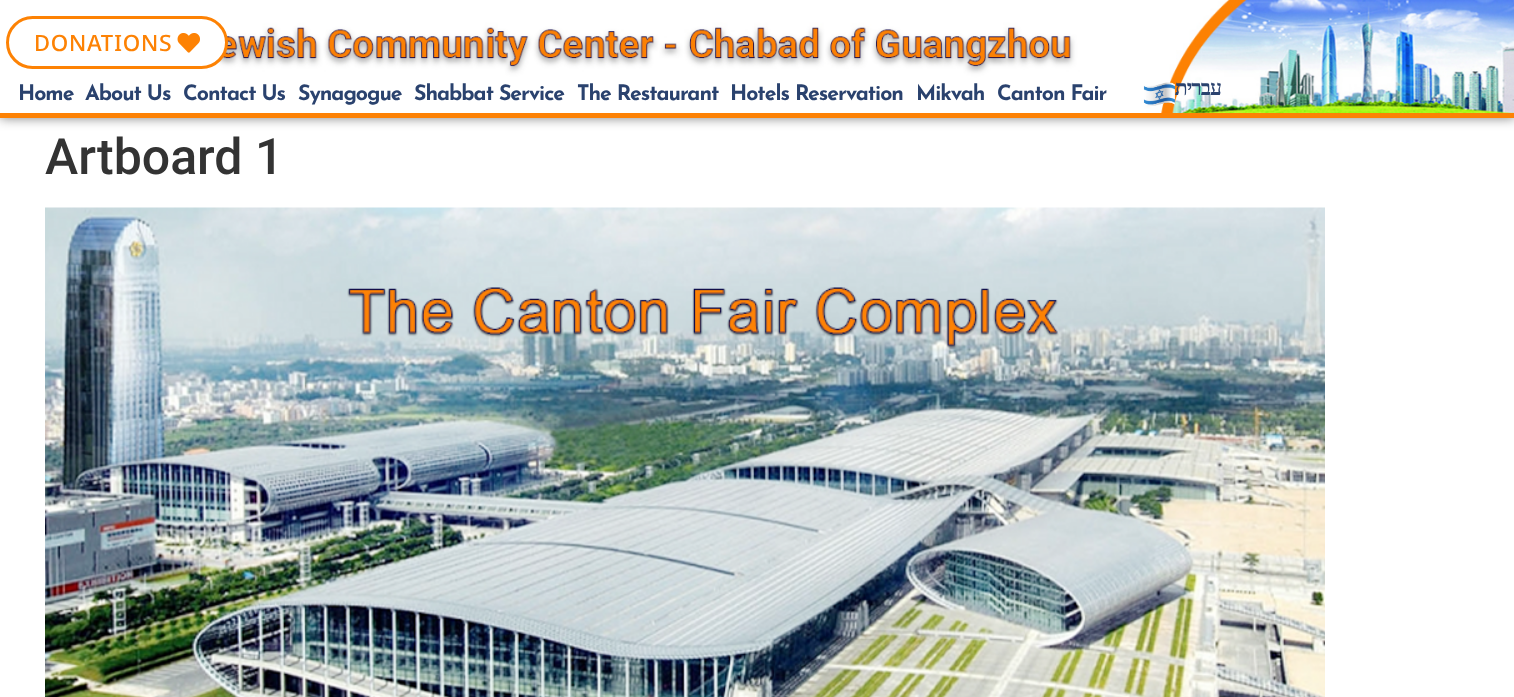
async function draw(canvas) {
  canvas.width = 1514;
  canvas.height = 697;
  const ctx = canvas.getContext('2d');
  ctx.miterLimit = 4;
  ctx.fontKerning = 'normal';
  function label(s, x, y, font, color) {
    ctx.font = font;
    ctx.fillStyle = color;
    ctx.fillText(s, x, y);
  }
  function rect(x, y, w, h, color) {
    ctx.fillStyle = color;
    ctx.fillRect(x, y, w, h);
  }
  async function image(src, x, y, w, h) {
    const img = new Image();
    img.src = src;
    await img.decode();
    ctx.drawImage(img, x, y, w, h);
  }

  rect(0, 0, 1514, 697, '#fff');
  ctx.fillStyle = '#00000080';
  ctx.filter = 'blur(6px)';
  ctx.beginPath();
  ctx.rect(0, 0, 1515, 118);
  ctx.fill();
  ctx.filter = 'none';
  await image('assets/img1.png', 0, 0, 1514, 113);
  rect(0, 113, 1514, 5, '#fd8204');
  ctx.fillStyle = '#fff';
  ctx.beginPath();
  ctx.roundRect(7.5, 17.5, 219, 50, 25);
  ctx.fill();
  ctx.strokeStyle = '#fd8204';
  ctx.lineWidth = 3;
  ctx.stroke();
  ctx.letterSpacing = '0.75px';
  label('DONATIONS', 34, 51, '500 22.5px Noto Sans Hebrew', '#fd8204');
  await image('assets/img2.png', 177, 33, 23, 20);
  ctx.letterSpacing = '-1px';
  label('Home', 18, 100, 'bold 21.25px Josefin Sans', '#2a426e');
  label('About Us', 85, 100, 'bold 21.25px Josefin Sans', '#2a426e');
  label('Contact Us', 183, 100, 'bold 21.25px Josefin Sans', '#2a426e');
  label('Synagogue', 298, 100, 'bold 21.25px Josefin Sans', '#2a426e');
  label('Shabbat Service', 414, 100, 'bold 21.25px Josefin Sans', '#2a426e');
  label('The Restaurant', 577, 100, 'bold 21.25px Josefin Sans', '#2a426e');
  label('Hotels Reservation', 730, 100, 'bold 21.25px Josefin Sans', '#2a426e');
  label('Mikvah', 916, 100, 'bold 21.25px Josefin Sans', '#2a426e');
  label('Canton Fair', 997, 100, 'bold 21.25px Josefin Sans', '#2a426e');
  await image('assets/img3.png', 1143, 82, 32, 24);
  ctx.direction = 'rtl';
  label('עברית', 1221, 95, 'bold 21.25px Liberation Serif', '#2a426e');
  ctx.letterSpacing = '0px';
  ctx.direction = 'ltr';
  label('Artboard 1', 45, 174, '500 50px Roboto', '#333');
  await image('assets/img4.png', 45, 207, 1280, 490);
}

draw(document.querySelector('canvas'));
